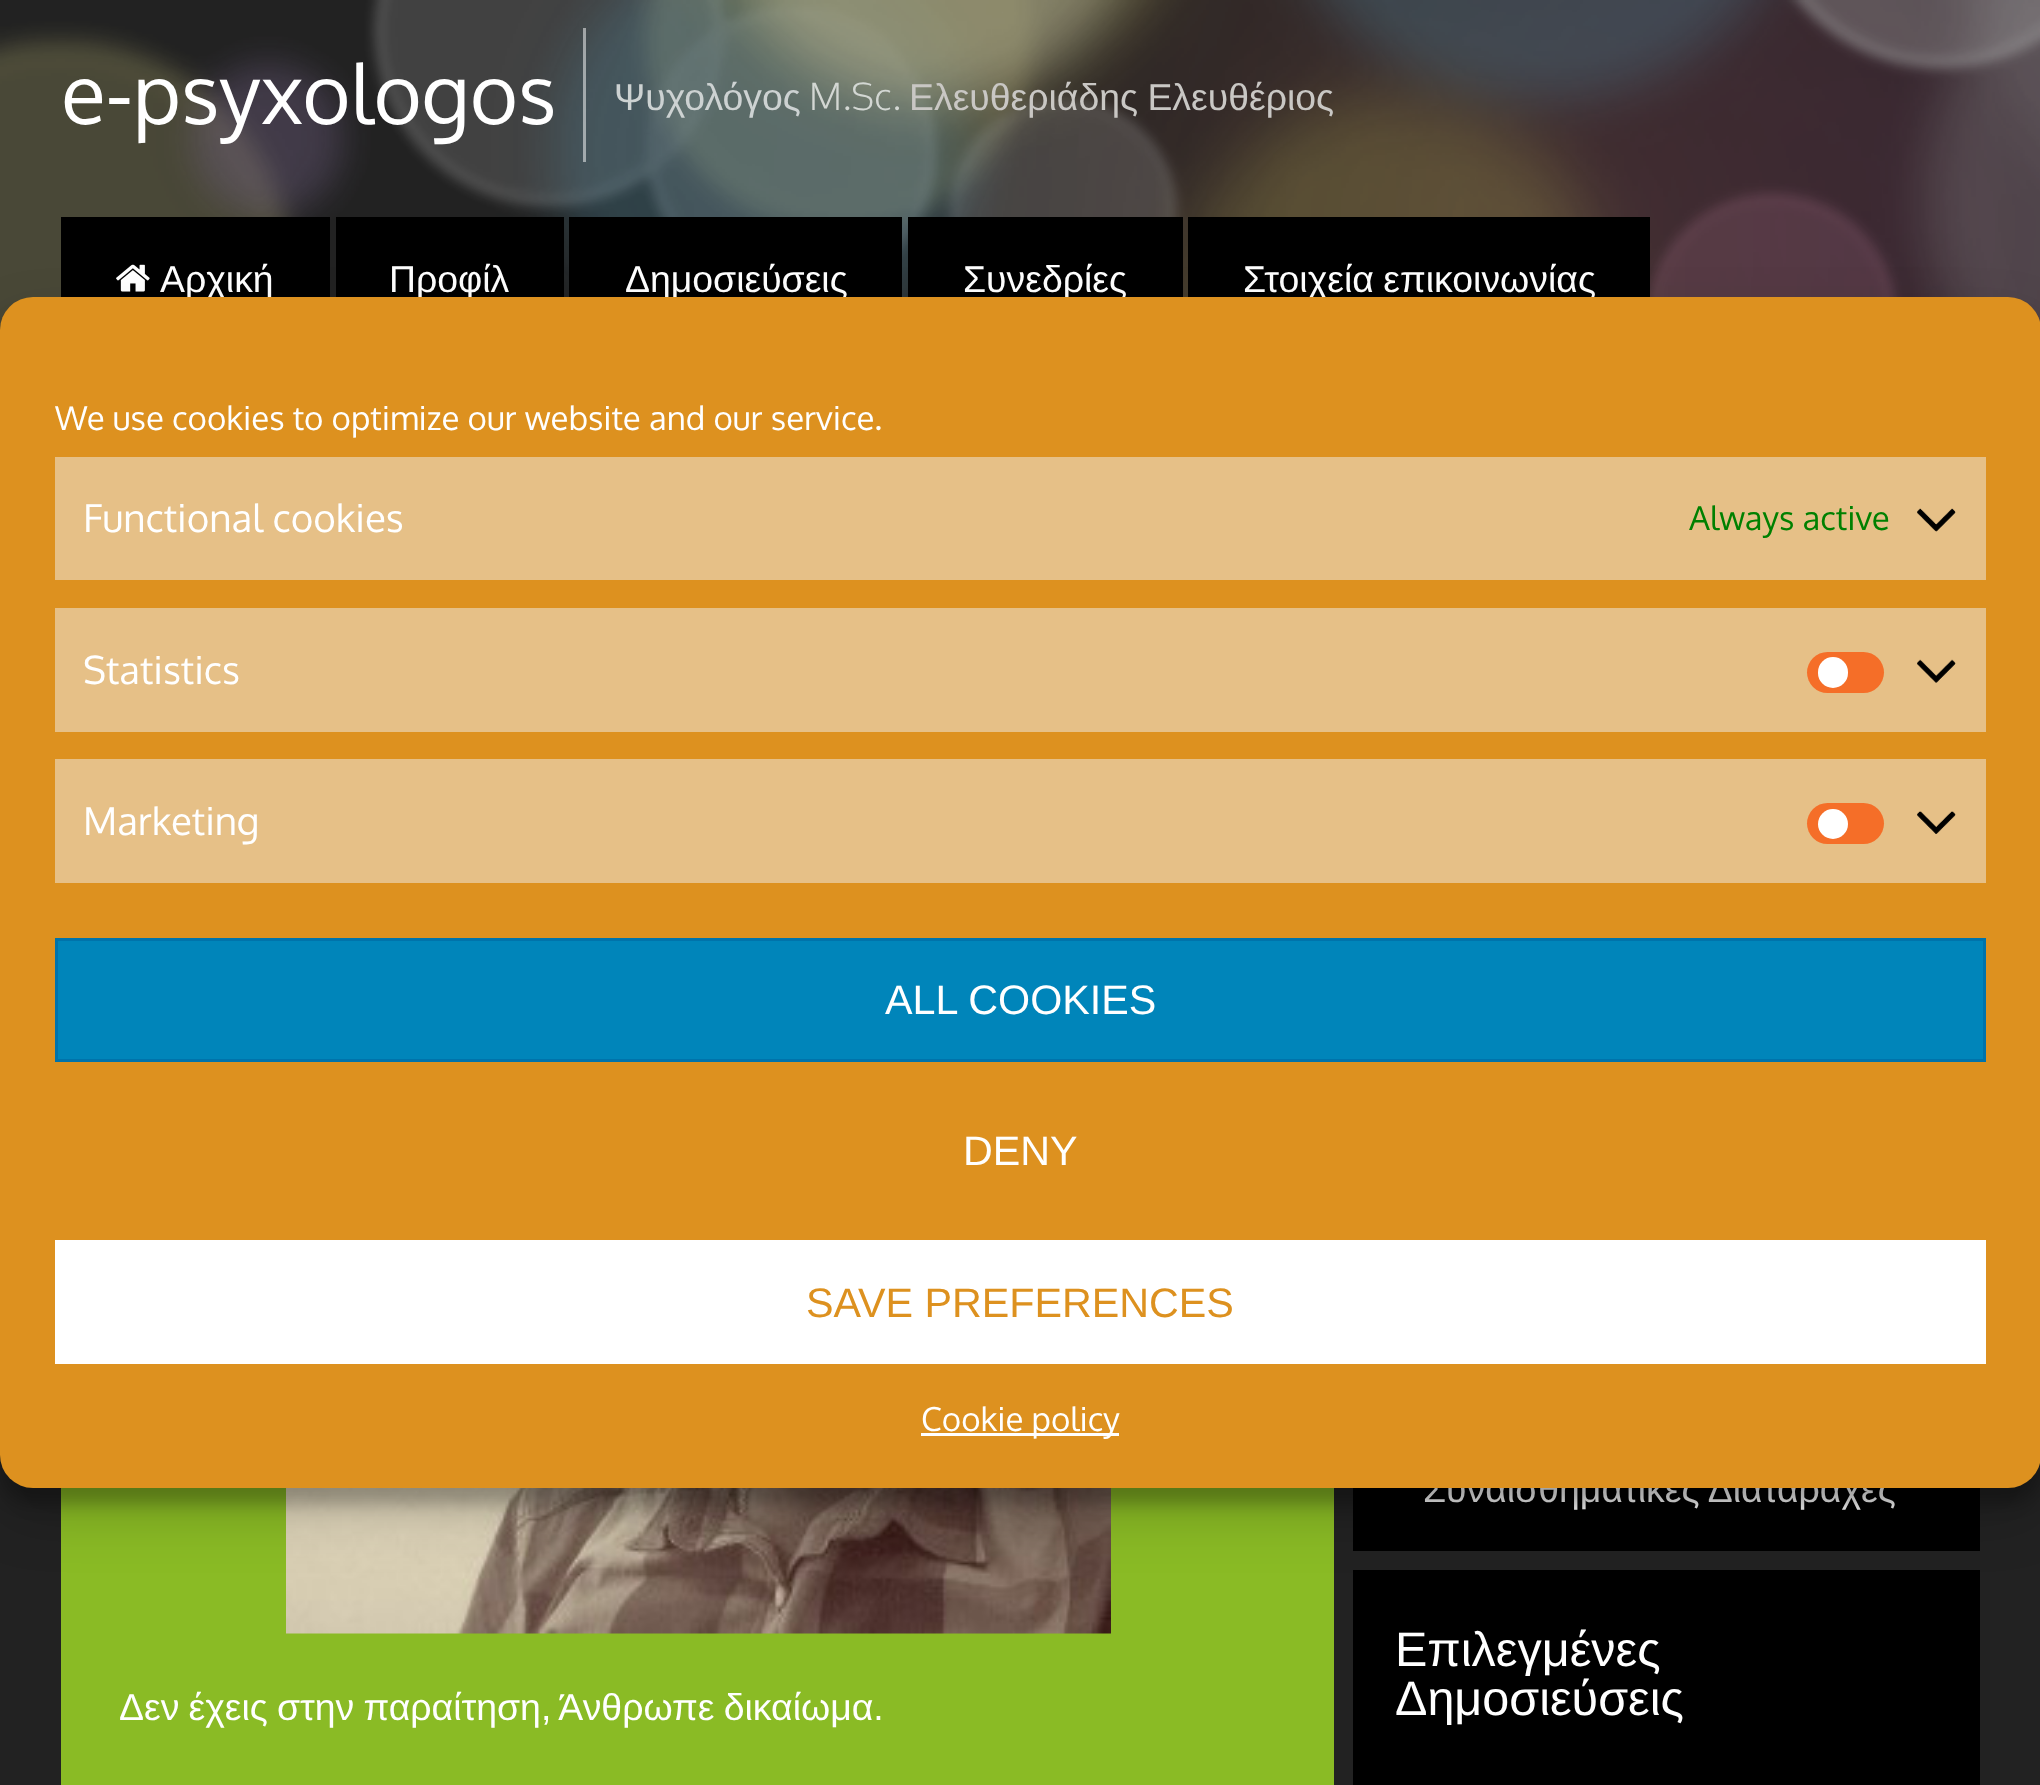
async function draw(canvas) {
  canvas.width = 2040;
  canvas.height = 1785;
  const ctx = canvas.getContext('2d');
  ctx.miterLimit = 4;
  ctx.fontKerning = 'normal';
  function label(s, x, y, font, color) {
    ctx.font = font;
    ctx.fillStyle = color;
    ctx.fillText(s, x, y);
  }
  function rect(x, y, w, h, color) {
    ctx.fillStyle = color;
    ctx.fillRect(x, y, w, h);
  }
  function roundedRect(x, y, w, h, r, color) {
    ctx.fillStyle = color;
    ctx.beginPath();
    ctx.roundRect(x, y, w, h, r);
    ctx.fill();
  }
  async function image(src, x, y, w, h) {
    const img = new Image();
    img.src = src;
    await img.decode();
    ctx.drawImage(img, x, y, w, h);
  }

  rect(0, 0, 2040, 1785, '#222');
  await image('assets/img1.png', 0, 0, 2040, 330);
  label('e-psyxologos', 61, 124, '82.5px Oxygen', '#fff');
  rect(583, 28, 3, 134, '#ffffff80');
  label('Ψυχολόγος', 614, 110, '37.4px Liberation Sans', '#cdd2d2');
  label('M.Sc.', 809, 110, '300 37.4px Oxygen', '#d3d7d3');
  ctx.wordSpacing = '-1px';
  label('Ελευθεριάδης Ελευθέριος', 909, 110, '37.4px Liberation Sans', '#c9c7c4');
  rect(61, 217, 269, 80, '#000');
  await image('assets/img2.png', 116, 264, 34, 28);
  ctx.wordSpacing = '0px';
  label('Αρχική', 160, 292, '37.4px Liberation Sans', '#fff');
  rect(336, 217, 228, 80, '#000');
  label('Προφίλ', 389, 292, '37.4px Liberation Sans', '#fff');
  rect(569, 217, 333, 80, '#000');
  label('Δημοσιεύσεις', 625, 292, '37.4px Liberation Sans', '#fff');
  rect(908, 217, 275, 80, '#000');
  label('Συνεδρίες', 963, 292, '37.4px Liberation Sans', '#fff');
  rect(1188, 217, 462, 80, '#000');
  ctx.wordSpacing = '-1px';
  label('Στοιχεία επικοινωνίας', 1243, 292, '37.4px Liberation Sans', '#fff');
  rect(61, 1488, 1273, 297, '#8abb25');
  await image('assets/img3.png', 286, 1488, 825, 146);
  ctx.wordSpacing = '-1.25px';
  label('Δεν έχεις στην παραίτηση, Άνθρωπε δικαίωμα.', 119, 1720, '37.4px Liberation Sans', '#fff');
  rect(1353, 1488, 627, 63, '#000');
  ctx.wordSpacing = '0px';
  label('Συναισθηματικές Διαταραχές', 1423, 1502, '37.4px Liberation Sans', '#fff');
  rect(1353, 1570, 627, 215, '#000');
  label('Επιλεγμένες', 1395, 1666, '48.5px Liberation Sans', '#fff');
  label('Δημοσιεύσεις', 1395, 1715, '48.5px Liberation Sans', '#fff');
  ctx.fillStyle = '#0000003b';
  ctx.filter = 'blur(8px)';
  ctx.beginPath();
  ctx.roundRect(0, 314, 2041, 1190, 33);
  ctx.fill();
  ctx.filter = 'none';
  ctx.fillStyle = '#00000030';
  ctx.filter = 'blur(27.5px)';
  ctx.beginPath();
  ctx.roundRect(0, 325, 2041, 1190, 33);
  ctx.fill();
  ctx.filter = 'none';
  roundedRect(0, 297, 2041, 1191, 33, '#dd911f');
  label('We use cookies to optimize our website and our service.', 55, 430, '33px Oxygen', '#fff');
  rect(55, 457, 1931, 123, '#e6c087');
  label('Functional cookies', 83, 532, '38.5px Oxygen', '#fff');
  label('Always active', 1689, 530, '33px Oxygen', '#008000');
  await image('assets/img4.png', 1917, 508, 39, 24);
  rect(55, 608, 1931, 124, '#e6c087');
  label('Statistics', 83, 684, '38.5px Oxygen', '#fff');
  roundedRect(1807, 652, 77, 41, 20.5, '#f56e28');
  roundedRect(1818, 657, 30, 31, 15, '#fff');
  await image('assets/img5.png', 1917, 659, 39, 24);
  rect(55, 759, 1931, 124, '#e6c087');
  label('Marketing', 83, 835, '38.5px Oxygen', '#fff');
  roundedRect(1807, 803, 77, 41, 20.5, '#f56e28');
  ctx.fillStyle = '#fff';
  ctx.beginPath();
  ctx.arc(1833, 824, 15, 0, 2 * Math.PI);
  ctx.fill();
  await image('assets/img6.png', 1917, 811, 39, 23);
  ctx.fillStyle = '#0085ba';
  ctx.beginPath();
  ctx.rect(56.5, 939.5, 1928, 121);
  ctx.fill();
  ctx.strokeStyle = '#0073aa';
  ctx.lineWidth = 3;
  ctx.stroke();
  label('ALL COOKIES', 885, 1014, '41.25px Liberation Sans', '#fff');
  label('DENY', 963, 1165, '41.25px Liberation Sans', '#fff');
  rect(55, 1240, 1931, 124, '#fff');
  label('SAVE PREFERENCES', 806, 1317, '41.25px Liberation Sans', '#dd911f');
  rect(921, 1433, 198, 3, '#fff');
  label('Cookie policy', 921, 1431, '33px Oxygen', '#fff');
}

draw(document.querySelector('canvas'));
